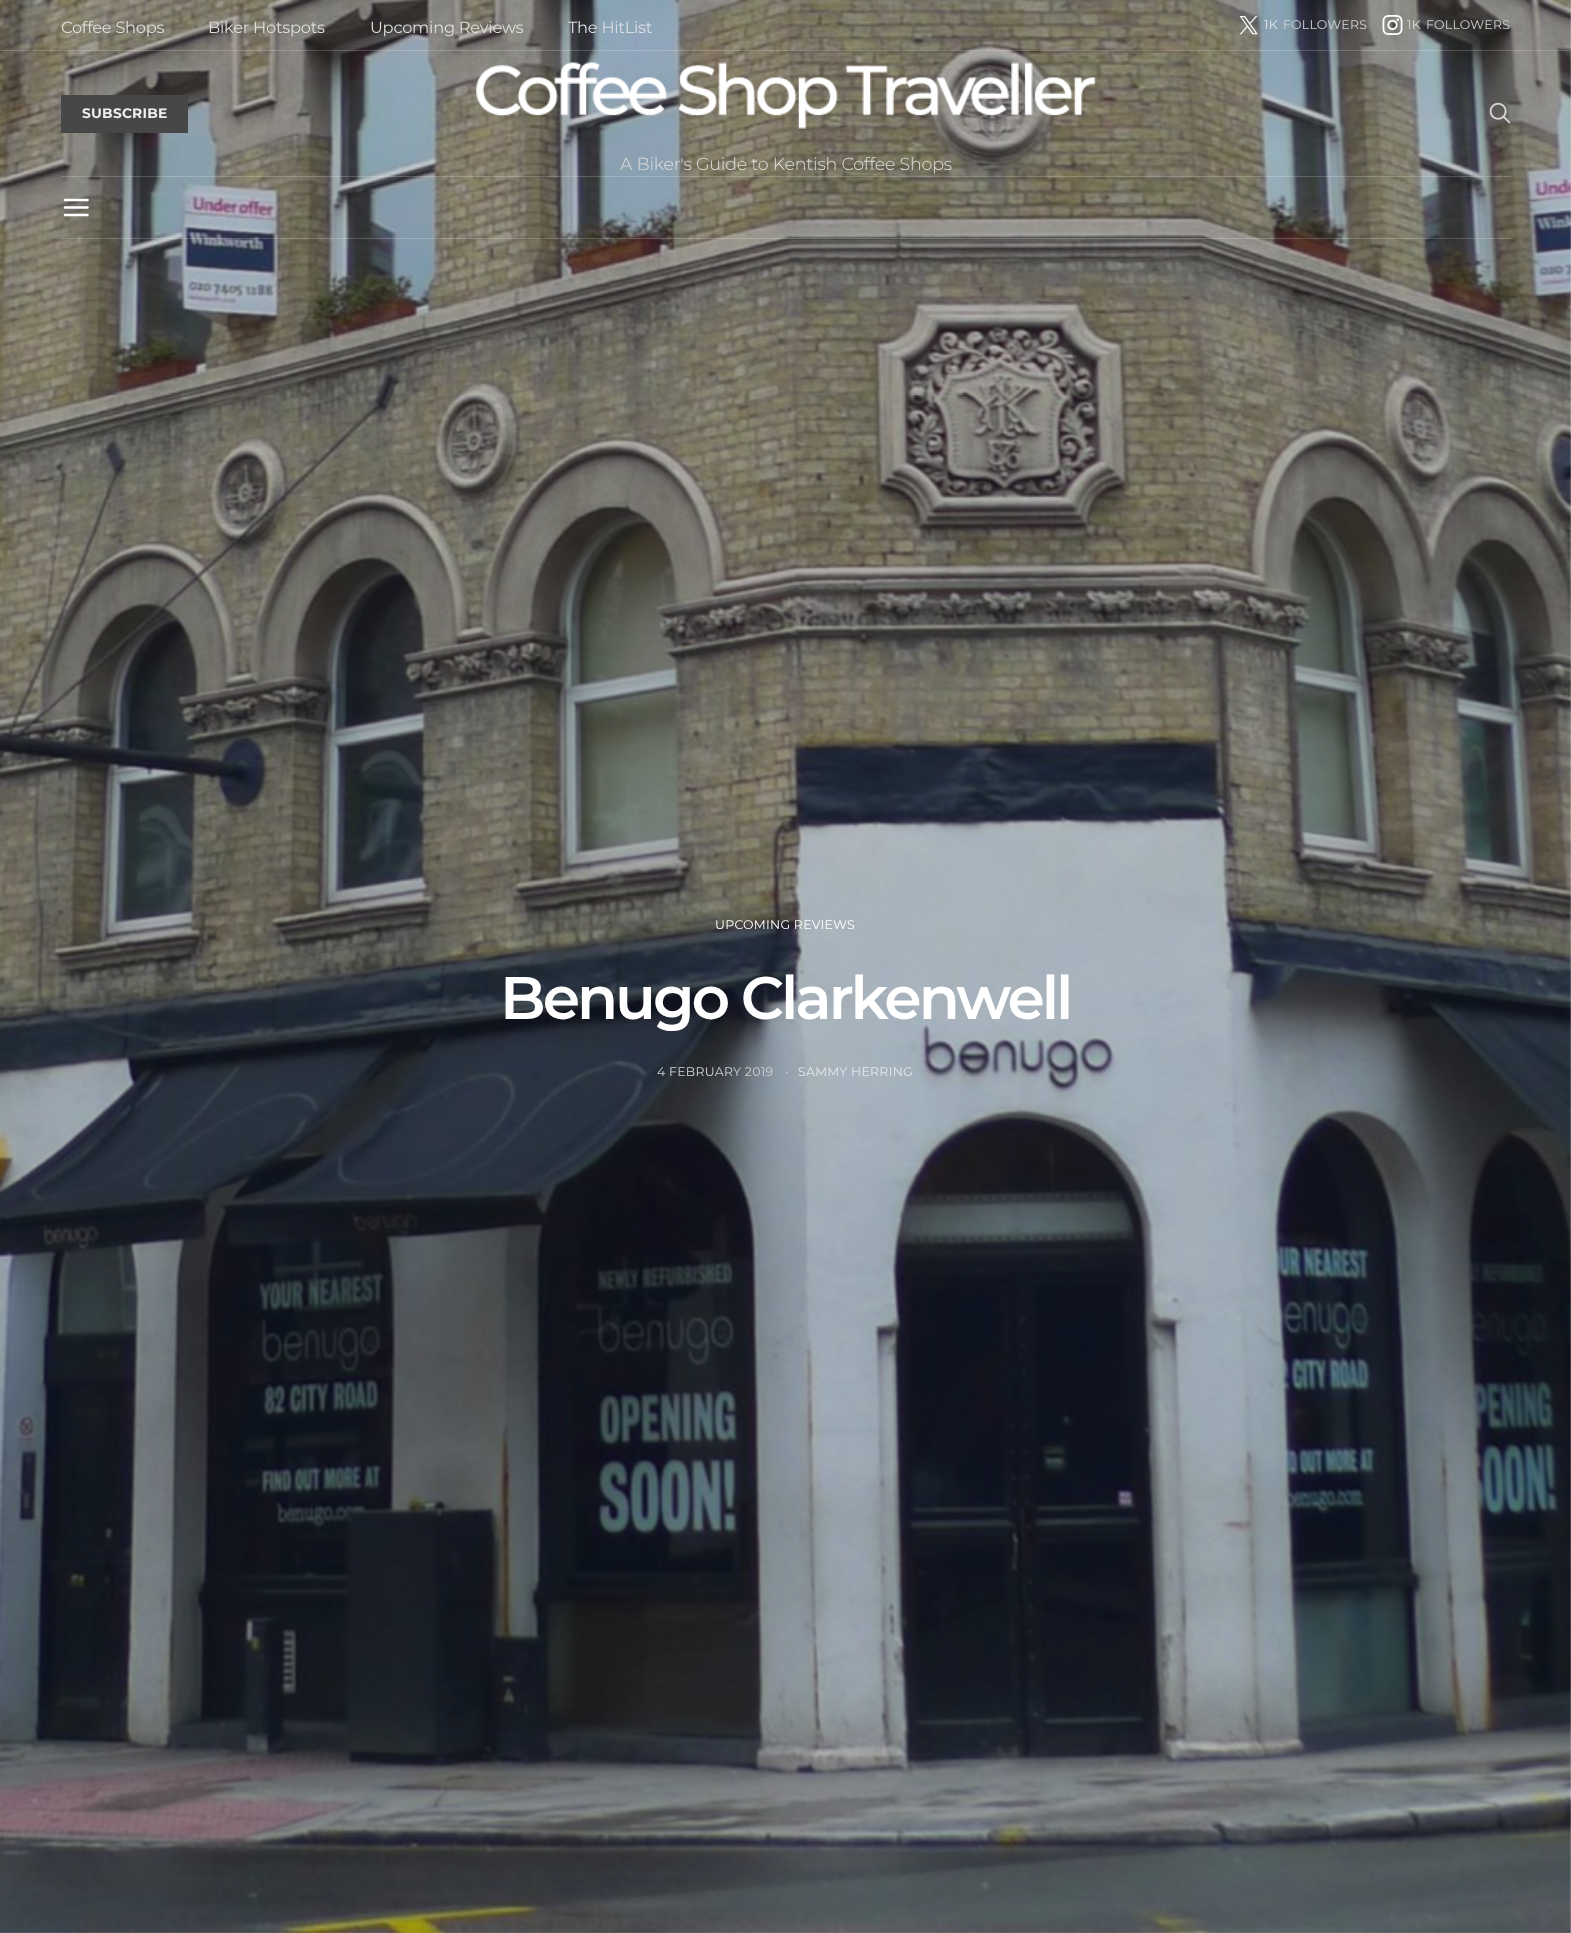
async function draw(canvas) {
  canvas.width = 1571;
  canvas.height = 1933;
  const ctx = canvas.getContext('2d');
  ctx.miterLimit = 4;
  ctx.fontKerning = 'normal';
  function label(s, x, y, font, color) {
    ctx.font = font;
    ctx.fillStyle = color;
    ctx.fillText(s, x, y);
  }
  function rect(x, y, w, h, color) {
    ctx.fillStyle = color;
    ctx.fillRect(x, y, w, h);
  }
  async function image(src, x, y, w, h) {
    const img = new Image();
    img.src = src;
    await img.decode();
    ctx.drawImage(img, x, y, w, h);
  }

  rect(0, 0, 1571, 1933, '#fff');
  await image('assets/img6.png', 0, 0, 1571, 1933);
  rect(0, 50, 1571, 1, '#ffffff33');
  ctx.letterSpacing = '-0.25px';
  label('Coffee Shops', 61, 33, '16.25px Montserrat', '#dededb');
  label('Biker Hotspots', 208, 33, '16.25px Montserrat', '#dededb');
  label('Upcoming Reviews', 370, 33, '16.25px Montserrat', '#dededb');
  label('The HitList', 568, 33, '16.25px Montserrat', '#dbdfe3');
  await image('assets/img1.png', 1239, 16, 19, 19);
  ctx.letterSpacing = '0.25px';
  label('1K', 1264, 29, '12.5px Montserrat', '#e4e7ea');
  label('FOLLOWERS', 1283, 29, '12.5px Montserrat', '#d0d2d4');
  await image('assets/img2.png', 1382, 15, 21, 20);
  label('1K', 1407, 29, '12.5px Montserrat', '#dededb');
  label('FOLLOWERS', 1426, 29, '12.5px Montserrat', '#cfcfce');
  rect(61, 95, 127, 38, '#474747');
  label('SUBSCRIBE', 82, 118, 'bold 13.75px Montserrat', '#eee');
  await image('assets/img3.png', 1489, 102, 22, 22);
  await image('assets/img4.png', 476, 62, 620, 67);
  ctx.letterSpacing = '-0.2px';
  label('A Biker\'s Guide to Kentish Coffee Shops', 620, 170, '300 17.5px Montserrat', '#dededb');
  rect(61, 176, 1450, 1, '#ffffff33');
  rect(61, 238, 1450, 1, '#ffffff33');
  await image('assets/img5.png', 63, 198, 26, 19);
  ctx.letterSpacing = '0.25px';
  label('UPCOMING REVIEWS', 715, 929, '12.5px Montserrat', '#fff');
  ctx.letterSpacing = '-3px';
  label('Benugo Clarkenwell', 500, 1019, '600 60px Montserrat', '#fff');
  ctx.letterSpacing = '0.25px';
  label('4 FEBRUARY 2019', 657, 1076, '12.5px Montserrat', '#d0d2d4');
  label('·', 785, 1076, '12.5px Montserrat', '#e4e7ea');
  label('SAMMY HERRING', 798, 1076, '12.5px Montserrat', '#e4e7ea');
}

draw(document.querySelector('canvas'));
